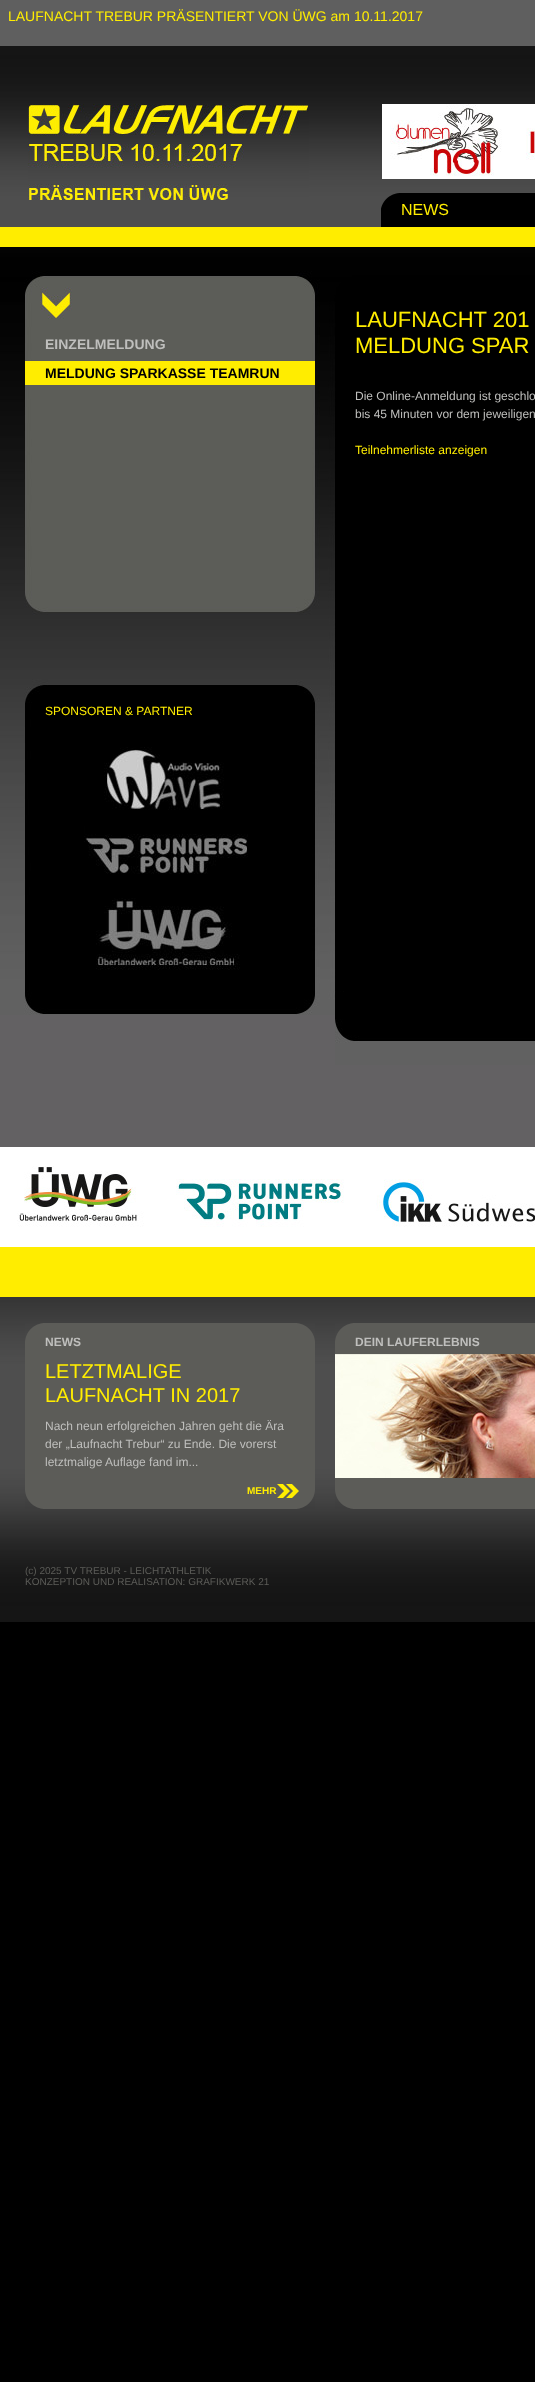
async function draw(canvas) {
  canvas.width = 535;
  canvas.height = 2382;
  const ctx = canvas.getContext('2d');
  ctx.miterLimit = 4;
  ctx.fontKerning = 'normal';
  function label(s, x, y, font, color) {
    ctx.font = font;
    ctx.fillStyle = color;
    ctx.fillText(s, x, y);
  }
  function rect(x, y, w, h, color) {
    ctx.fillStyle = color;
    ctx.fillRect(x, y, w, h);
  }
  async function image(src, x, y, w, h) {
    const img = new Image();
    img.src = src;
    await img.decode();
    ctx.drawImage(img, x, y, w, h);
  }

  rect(0, 0, 535, 2382, '#000');
  rect(0, 0, 535, 46, '#5f5f5f');
  label('LAUFNACHT TREBUR PRÄSENTIERT VON ÜWG am 10.11.2017', 8, 21, '14px Liberation Sans', '#ffed00');
  await image('assets/img1.png', 0, 46, 535, 181);
  await image('assets/img2.png', 28, 104, 281, 96);
  await image('assets/img3.png', 382, 104, 153, 75);
  await image('assets/img4.png', 381, 193, 154, 34);
  label('NEWS', 401, 215, '16px Liberation Sans', '#ffed00');
  rect(0, 227, 535, 20, '#ffed00');
  rect(0, 1015, 535, 132, '#636163');
  await image('assets/img5.png', 0, 247, 535, 768);
  label('EINZELMELDUNG', 45, 349, 'bold 14px Liberation Sans', '#bfbfbd');
  rect(25, 361, 290, 24, '#ffed00');
  label('MELDUNG SPARKASSE TEAMRUN', 45, 378, 'bold 14px Liberation Sans', '#000');
  label('SPONSOREN & PARTNER', 45, 715, '12px Liberation Sans', '#ffed00');
  await image('assets/img6.png', 84, 747, 164, 223);
  rect(335, 992, 200, 27, '#000');
  label('LAUFNACHT 201', 355, 327, '22px Liberation Sans', '#ffed00');
  label('MELDUNG SPAR', 355, 353, '22px Liberation Sans', '#ffed00');
  label('Die Online-Anmeldung ist geschlo', 355, 400, '12px Liberation Sans', '#bfbfbd');
  label('bis 45 Minuten vor dem jeweiligen', 355, 418, '12px Liberation Sans', '#bfbfbd');
  label('Teilnehmerliste anzeigen', 355, 454, '12px Liberation Sans', '#ffed00');
  await image('assets/img7.png', 335, 1019, 200, 46);
  rect(0, 1147, 535, 100, '#fff');
  await image('assets/img8.png', 17, 1166, 518, 61);
  await image('assets/img9.png', 0, 1297, 535, 325);
  rect(0, 1247, 535, 50, '#ffed00');
  await image('assets/img10.png', 25, 1323, 290, 186);
  label('NEWS', 45, 1346, 'bold 12px Liberation Sans', '#bfbfbd');
  label('LETZTMALIGE', 45, 1378, '20px Liberation Sans', '#ffed00');
  label('LAUFNACHT IN 2017', 45, 1402, '20px Liberation Sans', '#ffed00');
  label('Nach neun erfolgreichen Jahren geht die Ära', 45, 1430, '12px Liberation Sans', '#bfbfbd');
  label('der „Laufnacht Trebur“ zu Ende. Die vorerst', 45, 1448, '12px Liberation Sans', '#bfbfbd');
  label('letztmalige Auflage fand im...', 45, 1466, '12px Liberation Sans', '#bfbfbd');
  await image('assets/img11.png', 277, 1484, 22, 14);
  label('MEHR', 247, 1494, 'bold 10px Liberation Sans', '#ffed00');
  await image('assets/img12.png', 335, 1323, 200, 186);
  label('DEIN LAUFERLEBNIS', 355, 1346, 'bold 12px Liberation Sans', '#bfbfbd');
  await image('assets/img13.png', 335, 1354, 200, 124);
  label('(c) 2025 TV TREBUR - LEICHTATHLETIK', 25, 1574, '10px Liberation Sans', '#5c5c58');
  label('KONZEPTION UND REALISATION: GRAFIKWERK 21', 25, 1585, '10px Liberation Sans', '#5c5c58');
}

draw(document.querySelector('canvas'));
